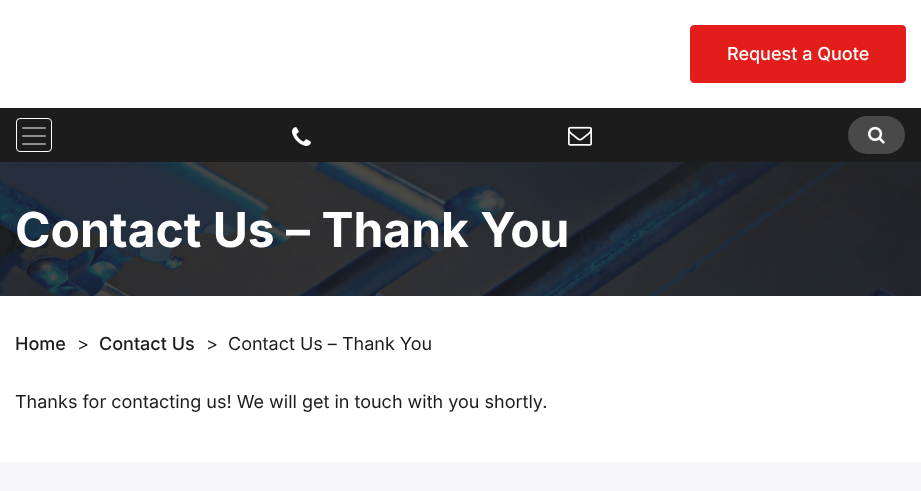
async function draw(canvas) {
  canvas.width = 921;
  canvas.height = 491;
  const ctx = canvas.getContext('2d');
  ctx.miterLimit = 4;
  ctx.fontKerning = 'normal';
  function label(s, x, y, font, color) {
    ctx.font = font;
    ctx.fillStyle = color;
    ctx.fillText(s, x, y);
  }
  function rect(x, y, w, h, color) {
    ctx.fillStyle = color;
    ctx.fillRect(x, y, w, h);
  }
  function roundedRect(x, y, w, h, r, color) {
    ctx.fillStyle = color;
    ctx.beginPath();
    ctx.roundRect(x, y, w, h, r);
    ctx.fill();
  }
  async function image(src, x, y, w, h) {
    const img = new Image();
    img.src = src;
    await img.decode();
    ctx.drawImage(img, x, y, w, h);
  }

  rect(0, 0, 921, 491, '#fff');
  ctx.fillStyle = '#e31d1a';
  ctx.beginPath();
  ctx.roundRect(690.5, 25.5, 215, 57, 3.5);
  ctx.fill();
  ctx.strokeStyle = '#e31d1a';
  ctx.stroke();
  label('Request a Quote', 727, 60, '500 18px Inter', '#fff');
  rect(0, 108, 921, 54, '#1c1c1c');
  ctx.beginPath();
  ctx.roundRect(16.5, 118.5, 35, 33, 3.5);
  ctx.strokeStyle = '#fff';
  ctx.stroke();
  await image('assets/img1.png', 22, 127, 24, 18);
  await image('assets/img2.png', 292, 127, 19, 19);
  await image('assets/img3.png', 568, 126, 24, 20);
  roundedRect(848, 116, 57, 38, 19, '#494949');
  await image('assets/img4.png', 868, 126, 17, 18);
  await image('assets/img5.png', 0, 162, 921, 134);
  label('Contact Us – Thank You', 15, 247, 'bold 48px Inter', '#fff');
  label('Home', 15, 350, '500 18px Inter', '#1c1c1c');
  label('>', 77, 350, '18px Inter', '#1c1c1c');
  label('Contact Us', 99, 350, '500 18px Inter', '#1c1c1c');
  label('>', 206, 350, '18px Inter', '#1c1c1c');
  label('Contact Us – Thank You', 228, 350, '18px Inter', '#1c1c1c');
  label('Thanks for contacting us! We will get in touch with you shortly.', 15, 408, '18px Inter', '#1c1c1c');
  rect(0, 462, 921, 29, '#f6f6f8');
}

draw(document.querySelector('canvas'));
